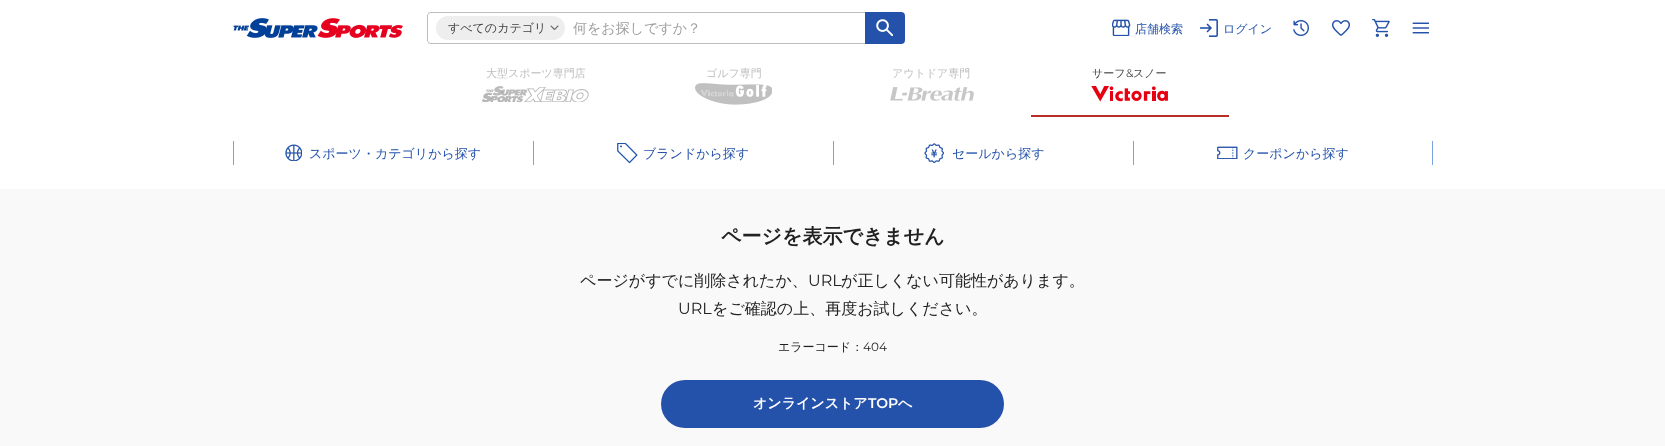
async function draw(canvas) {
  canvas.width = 1665;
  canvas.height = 446;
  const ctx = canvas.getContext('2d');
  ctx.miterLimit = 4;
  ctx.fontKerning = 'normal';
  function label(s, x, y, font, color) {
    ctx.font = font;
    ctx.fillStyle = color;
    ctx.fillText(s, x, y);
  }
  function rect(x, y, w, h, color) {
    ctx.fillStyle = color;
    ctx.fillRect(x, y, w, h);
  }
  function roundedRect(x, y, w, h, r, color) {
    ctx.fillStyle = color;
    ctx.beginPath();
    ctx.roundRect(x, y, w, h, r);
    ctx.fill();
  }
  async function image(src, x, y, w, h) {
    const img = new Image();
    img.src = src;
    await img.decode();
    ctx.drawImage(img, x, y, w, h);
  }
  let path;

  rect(0, 0, 1665, 446, '#fff');
  await image('assets/img1.png', 233, 18, 170, 20);
  ctx.fillStyle = '#bdbdbd';
  path = new Path2D('M431 12H865V44H431C429 44 427 42 427 40V16C427 14 429 12 431 12ZM431 13H865V43H431C429 43 428 42 428 40V16C428 14 429 13 431 13Z');
  ctx.fill(path, 'evenodd');
  roundedRect(436, 16, 129, 24, 12, '#eee');
  label('すべてのカテゴリ', 448, 32, '500 12px WenQuanYi Zen Hei', '#424242');
  await image('assets/img2.png', 550, 25, 9, 5);
  label('何をお探しですか？', 573, 33, '500 14px WenQuanYi Zen Hei', '#9e9e9e');
  ctx.fillStyle = '#2452aa';
  ctx.beginPath();
  ctx.roundRect(865, 12, 40, 32, [0, 4, 4, 0]);
  ctx.fill();
  await image('assets/img3.png', 876, 19, 17, 17);
  await image('assets/img4.png', 1112, 19, 19, 17);
  label('店舗検索', 1135, 33, '500 12px WenQuanYi Zen Hei', '#2452aa');
  await image('assets/img5.png', 1200, 19, 18, 18);
  label('ログイン', 1223, 33, '500 12px WenQuanYi Zen Hei', '#2452aa');
  await image('assets/img6.png', 1293, 20, 16, 16);
  await image('assets/img7.png', 1332, 20, 18, 16);
  await image('assets/img8.png', 1372, 19, 18, 18);
  await image('assets/img9.png', 1412, 22, 17, 12);
  label('大型スポーツ専門店', 486, 77, '500 11px WenQuanYi Zen Hei', '#bdbdbd');
  await image('assets/img10.png', 482, 86, 107, 16);
  label('ゴルフ専門', 706, 77, '500 11px WenQuanYi Zen Hei', '#bdbdbd');
  await image('assets/img11.png', 695, 83, 77, 22);
  label('アウトドア専門', 892, 77, '500 11px WenQuanYi Zen Hei', '#bdbdbd');
  await image('assets/img12.png', 890, 87, 84, 14);
  rect(1031, 115, 198, 2, '#b92e29');
  label('サーフ', 1092, 77, '500 11px WenQuanYi Zen Hei', '#424242');
  label('&', 1126, 77, '11px Montserrat', '#424242');
  label('スノー', 1133, 77, '500 11px WenQuanYi Zen Hei', '#424242');
  await image('assets/img13.png', 1091, 86, 77, 16);
  rect(233, 141, 1, 24, '#79a2e1');
  await image('assets/img14.png', 285, 144, 17, 17);
  label('スポーツ・カテゴリから探す', 309, 158, '500 13px WenQuanYi Zen Hei', '#2452aa');
  rect(533, 141, 1, 24, '#79a2e1');
  await image('assets/img15.png', 617, 143, 21, 21);
  label('ブランドから探す', 643, 158, '500 13px WenQuanYi Zen Hei', '#2452aa');
  rect(833, 141, 1, 24, '#79a2e1');
  await image('assets/img16.png', 924, 143, 21, 20);
  label('セールから探す', 952, 158, '500 13px WenQuanYi Zen Hei', '#2452aa');
  rect(1432, 141, 1, 24, '#79a2e1');
  rect(1133, 141, 1, 24, '#79a2e1');
  await image('assets/img17.png', 1217, 146, 21, 13);
  label('クーポンから探す', 1243, 158, '500 13px WenQuanYi Zen Hei', '#2452aa');
  rect(0, 189, 1665, 257, '#f9f9f9');
  label('ページを表示できません', 721, 243, 'bold 20px WenQuanYi Zen Hei', '#212121');
  label('ページがすでに削除されたか、', 580, 286, '500 16px WenQuanYi Zen Hei', '#212121');
  label('URL', 808, 286, '16px Montserrat', '#212121');
  label('が正しくない可能性があります。', 841, 286, '500 16px WenQuanYi Zen Hei', '#212121');
  label('URL', 678, 314, '16px Montserrat', '#212121');
  label('をご確認の上、再度お試しください。', 712, 314, '500 16px WenQuanYi Zen Hei', '#212121');
  label('エラーコード：', 778, 351, '500 12px WenQuanYi Zen Hei', '#212121');
  label('404', 863, 351, '12px Montserrat', '#212121');
  roundedRect(661, 380, 343, 48, 24, '#2452aa');
  label('オンラインストア', 753, 408, 'bold 14px WenQuanYi Zen Hei', '#fff');
  label('TOP', 868, 408, '600 14px Montserrat', '#fff');
  label('へ', 898, 408, 'bold 14px WenQuanYi Zen Hei', '#fff');
}

draw(document.querySelector('canvas'));
